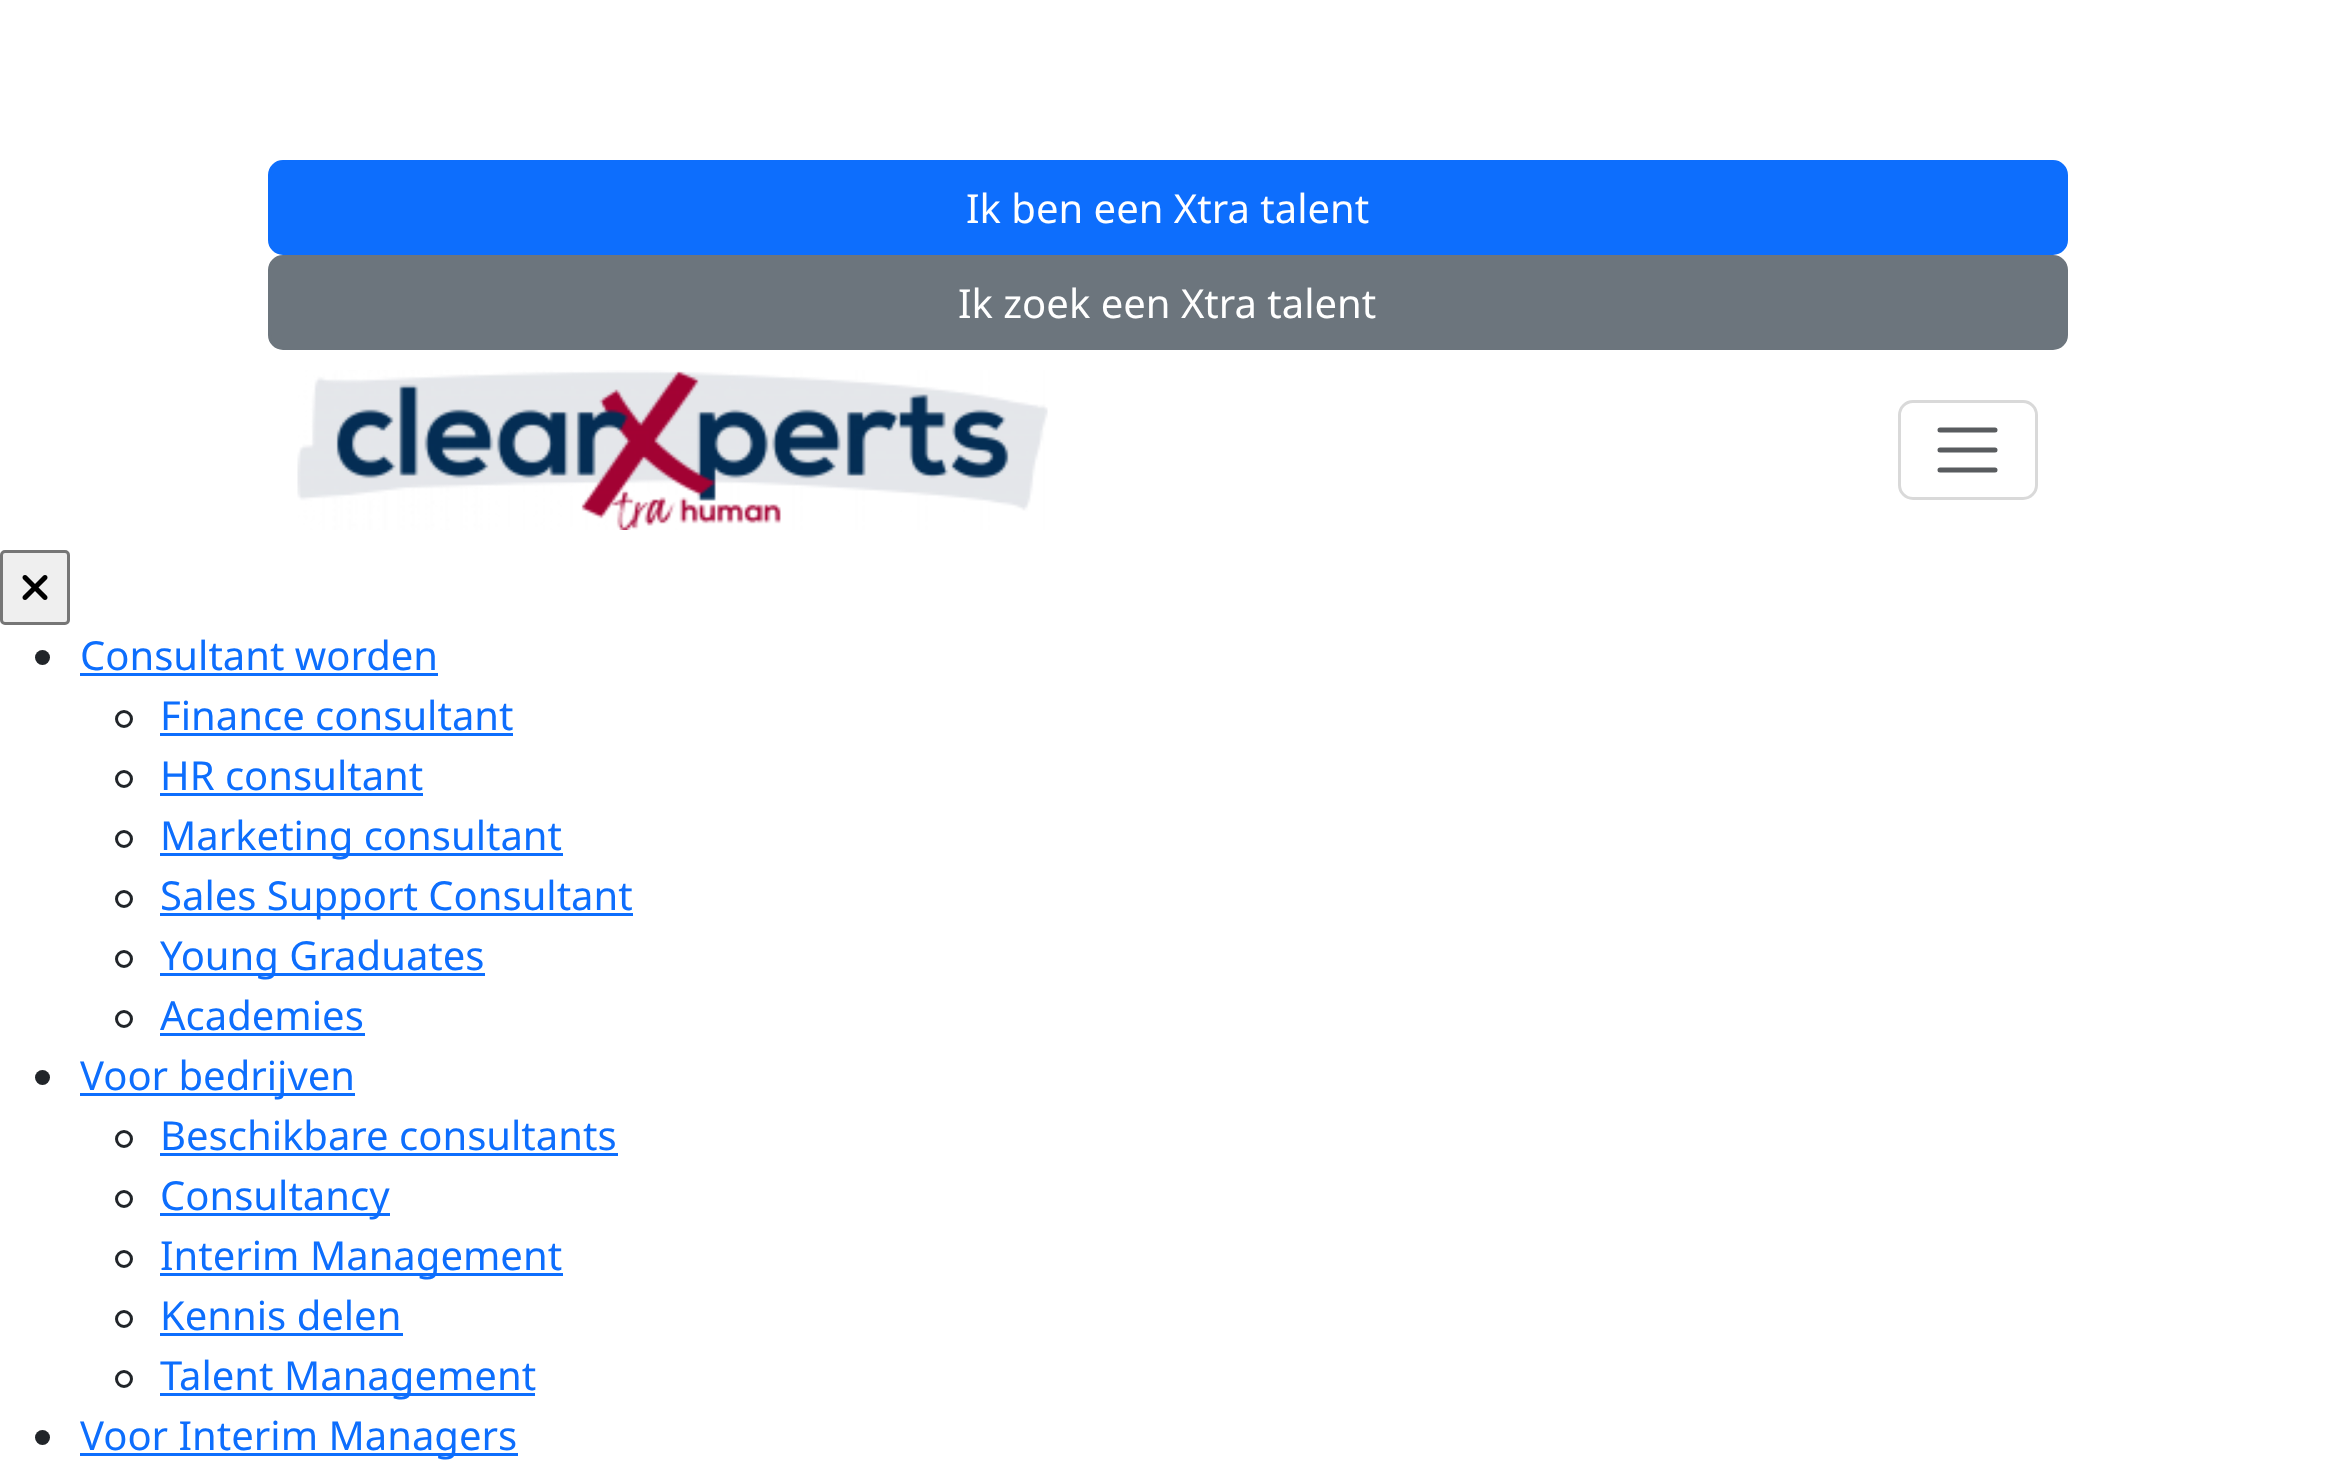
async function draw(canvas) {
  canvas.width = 2334;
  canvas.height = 1482;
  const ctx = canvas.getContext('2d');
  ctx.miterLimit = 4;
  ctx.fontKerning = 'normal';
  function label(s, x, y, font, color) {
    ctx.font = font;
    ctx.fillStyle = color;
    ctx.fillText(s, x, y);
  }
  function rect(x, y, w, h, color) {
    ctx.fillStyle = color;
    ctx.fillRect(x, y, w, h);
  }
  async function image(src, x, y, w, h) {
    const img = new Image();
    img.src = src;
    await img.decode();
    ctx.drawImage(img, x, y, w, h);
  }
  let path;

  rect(0, 0, 2334, 1482, '#fff');
  ctx.fillStyle = '#0d6efd';
  ctx.beginPath();
  ctx.roundRect(269.5, 161.5, 1797, 92, 13.5);
  ctx.fill();
  ctx.strokeStyle = '#0d6efd';
  ctx.lineWidth = 3;
  ctx.stroke();
  label('Ik ben een Xtra talent', 966, 223, '40px Noto Sans', '#fff');
  ctx.fillStyle = '#6c757d';
  ctx.beginPath();
  ctx.roundRect(269.5, 256.5, 1797, 92, 13.5);
  ctx.fill();
  ctx.strokeStyle = '#6c757d';
  ctx.stroke();
  label('Ik zoek een Xtra talent', 958, 318, '40px Noto Sans', '#fff');
  await image('assets/img1.png', 297, 370, 751, 160);
  ctx.beginPath();
  ctx.roundRect(1899.5, 401.5, 137, 97, 13.5);
  ctx.strokeStyle = '#d9d9d9';
  ctx.stroke();
  path = new Path2D('M1940 430H1995M1940 450H1995M1940 470H1995');
  ctx.strokeStyle = '#595c5f';
  ctx.lineWidth = 5;
  ctx.lineCap = 'round';
  ctx.stroke(path);
  ctx.fillStyle = '#efefef';
  ctx.beginPath();
  ctx.roundRect(1.5, 551.5, 67, 72, 3.5);
  ctx.fill();
  ctx.strokeStyle = '#767676';
  ctx.lineWidth = 3;
  ctx.stroke();
  await image('assets/img2.png', 22, 575, 26, 25);
  ctx.fillStyle = '#212529';
  ctx.beginPath();
  ctx.arc(42.5, 657.5, 7.5, 0, 2 * Math.PI);
  ctx.fill();
  label('Consultant worden', 80, 670, '40px Noto Sans', '#0d6efd');
  rect(80, 673, 358, 3, '#0d6efd');
  ctx.beginPath();
  ctx.arc(124, 719, 7.5, 0, 2 * Math.PI);
  ctx.strokeStyle = '#212529';
  ctx.stroke();
  label('Finance consultant', 160, 730, '40px Noto Sans', '#0d6efd');
  rect(160, 733, 353, 3, '#0d6efd');
  ctx.beginPath();
  ctx.arc(124, 779, 7.5, 0, 2 * Math.PI);
  ctx.stroke();
  label('HR consultant', 160, 790, '40px Noto Sans', '#0d6efd');
  rect(160, 793, 263, 3, '#0d6efd');
  ctx.beginPath();
  ctx.arc(124, 839, 7.5, 0, 2 * Math.PI);
  ctx.stroke();
  rect(160, 853, 403, 3, '#0d6efd');
  label('Marketing consultant', 160, 850, '40px Noto Sans', '#0d6efd');
  ctx.beginPath();
  ctx.arc(124, 899, 7.5, 0, 2 * Math.PI);
  ctx.stroke();
  rect(160, 913, 473, 3, '#0d6efd');
  label('Sales Support Consultant', 160, 910, '40px Noto Sans', '#0d6efd');
  ctx.beginPath();
  ctx.arc(124, 959, 7.5, 0, 2 * Math.PI);
  ctx.stroke();
  rect(160, 973, 325, 3, '#0d6efd');
  label('Young Graduates', 160, 970, '40px Noto Sans', '#0d6efd');
  ctx.beginPath();
  ctx.arc(124, 1019, 7.5, 0, 2 * Math.PI);
  ctx.stroke();
  label('Academies', 160, 1030, '40px Noto Sans', '#0d6efd');
  rect(160, 1033, 205, 3, '#0d6efd');
  ctx.fillStyle = '#212529';
  ctx.beginPath();
  ctx.arc(42.5, 1077.5, 7.5, 0, 2 * Math.PI);
  ctx.fill();
  rect(80, 1093, 275, 3, '#0d6efd');
  label('Voor bedrijven', 80, 1090, '40px Noto Sans', '#0d6efd');
  ctx.beginPath();
  ctx.arc(124, 1139, 7.5, 0, 2 * Math.PI);
  ctx.stroke();
  label('Beschikbare consultants', 160, 1150, '40px Noto Sans', '#0d6efd');
  rect(160, 1153, 458, 3, '#0d6efd');
  ctx.beginPath();
  ctx.arc(124, 1199, 7.5, 0, 2 * Math.PI);
  ctx.stroke();
  rect(160, 1213, 230, 3, '#0d6efd');
  label('Consultancy', 160, 1210, '40px Noto Sans', '#0d6efd');
  ctx.beginPath();
  ctx.arc(124, 1259, 7.5, 0, 2 * Math.PI);
  ctx.stroke();
  rect(160, 1273, 403, 3, '#0d6efd');
  label('Interim Management', 160, 1270, '40px Noto Sans', '#0d6efd');
  ctx.beginPath();
  ctx.arc(124, 1319, 7.5, 0, 2 * Math.PI);
  ctx.stroke();
  label('Kennis delen', 160, 1330, '40px Noto Sans', '#0d6efd');
  rect(160, 1333, 243, 3, '#0d6efd');
  ctx.beginPath();
  ctx.arc(124, 1379, 7.5, 0, 2 * Math.PI);
  ctx.stroke();
  rect(160, 1393, 375, 3, '#0d6efd');
  label('Talent Management', 160, 1390, '40px Noto Sans', '#0d6efd');
  ctx.fillStyle = '#212529';
  ctx.beginPath();
  ctx.arc(42.5, 1437.5, 7.5, 0, 2 * Math.PI);
  ctx.fill();
  rect(80, 1453, 438, 3, '#0d6efd');
  label('Voor Interim Managers', 80, 1450, '40px Noto Sans', '#0d6efd');
}

draw(document.querySelector('canvas'));
